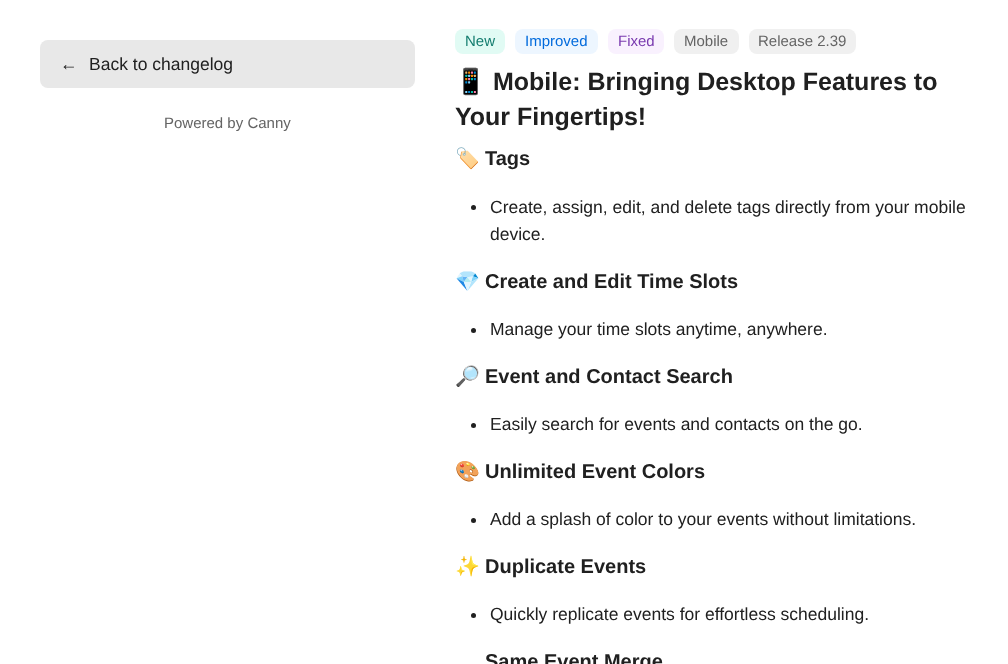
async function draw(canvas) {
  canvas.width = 1008;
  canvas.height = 664;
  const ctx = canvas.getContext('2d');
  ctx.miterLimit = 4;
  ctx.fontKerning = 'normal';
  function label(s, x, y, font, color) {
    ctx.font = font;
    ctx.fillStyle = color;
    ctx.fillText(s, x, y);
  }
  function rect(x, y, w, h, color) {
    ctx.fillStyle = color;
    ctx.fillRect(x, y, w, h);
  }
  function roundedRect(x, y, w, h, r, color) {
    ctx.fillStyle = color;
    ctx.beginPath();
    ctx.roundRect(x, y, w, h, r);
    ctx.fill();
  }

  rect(0, 0, 1008, 664, '#fff');
  roundedRect(40, 40, 375, 48, 8, '#e8e8e8');
  label('←', 60, 70, '17.5px Liberation Sans', '#202020');
  label('Back to changelog', 89, 70, '17.5px Liberation Sans', '#202020');
  label('Powered by Canny', 164, 128, '15px Liberation Sans', '#646464');
  roundedRect(455, 29, 50, 25, 8, '#e1fbf4');
  label('New', 465, 46, '15px Liberation Sans', '#147d6f');
  roundedRect(515, 29, 83, 25, 8, '#edf6ff');
  label('Improved', 525, 46, '15px Liberation Sans', '#006adc');
  roundedRect(608, 29, 56, 25, 8, '#f9f1fe');
  label('Fixed', 618, 46, '15px Liberation Sans', '#793aaf');
  roundedRect(674, 29, 65, 25, 8, '#f0f0f0');
  label('Mobile', 684, 46, '15px Liberation Sans', '#646464');
  roundedRect(749, 29, 107, 25, 8, '#f0f0f0');
  label('Release 2.39', 758, 46, '15px Liberation Sans', '#646464');
  label('📱', 455, 90, 'bold 25px Noto Color Emoji', '#202020');
  label('Mobile: Bringing Desktop Features to', 493, 90, 'bold 25px Liberation Sans', '#202020');
  label('Your Fingertips!', 455, 125, 'bold 25px Liberation Sans', '#202020');
  label('🏷️', 455, 165, 'bold 20px Noto Color Emoji', '#202020');
  label('Tags', 485, 165, 'bold 20px Liberation Sans', '#202020');
  ctx.beginPath();
  ctx.arc(473.5, 207.5, 2.5, 0, 2 * Math.PI);
  ctx.fill();
  label('Create, assign, edit, and delete tags directly from your mobile', 490, 213, '17.5px Liberation Sans', '#202020');
  label('device.', 490, 240, '17.5px Liberation Sans', '#202020');
  label('💎', 455, 288, 'bold 20px Noto Color Emoji', '#202020');
  label('Create and Edit Time Slots', 485, 288, 'bold 20px Liberation Sans', '#202020');
  ctx.beginPath();
  ctx.arc(473.5, 330.5, 2.5, 0, 2 * Math.PI);
  ctx.fill();
  label('Manage your time slots anytime, anywhere.', 490, 335, '17.5px Liberation Sans', '#202020');
  label('🔎', 455, 383, 'bold 20px Noto Color Emoji', '#202020');
  label('Event and Contact Search', 485, 383, 'bold 20px Liberation Sans', '#202020');
  ctx.beginPath();
  ctx.arc(473.5, 425.5, 2.5, 0, 2 * Math.PI);
  ctx.fill();
  label('Easily search for events and contacts on the go.', 490, 430, '17.5px Liberation Sans', '#202020');
  label('🎨', 455, 478, 'bold 20px Noto Color Emoji', '#202020');
  label('Unlimited Event Colors', 485, 478, 'bold 20px Liberation Sans', '#202020');
  ctx.beginPath();
  ctx.arc(473.5, 520.5, 2.5, 0, 2 * Math.PI);
  ctx.fill();
  label('Add a splash of color to your events without limitations.', 490, 525, '17.5px Liberation Sans', '#202020');
  label('✨', 455, 573, 'bold 20px Noto Color Emoji', '#202020');
  label('Duplicate Events', 485, 573, 'bold 20px Liberation Sans', '#202020');
  ctx.beginPath();
  ctx.arc(473.5, 615.5, 2.5, 0, 2 * Math.PI);
  ctx.fill();
  label('Quickly replicate events for effortless scheduling.', 490, 620, '17.5px Liberation Sans', '#202020');
  label('Same Event Merge', 485, 668, 'bold 20px Liberation Sans', '#202020');
}

draw(document.querySelector('canvas'));
